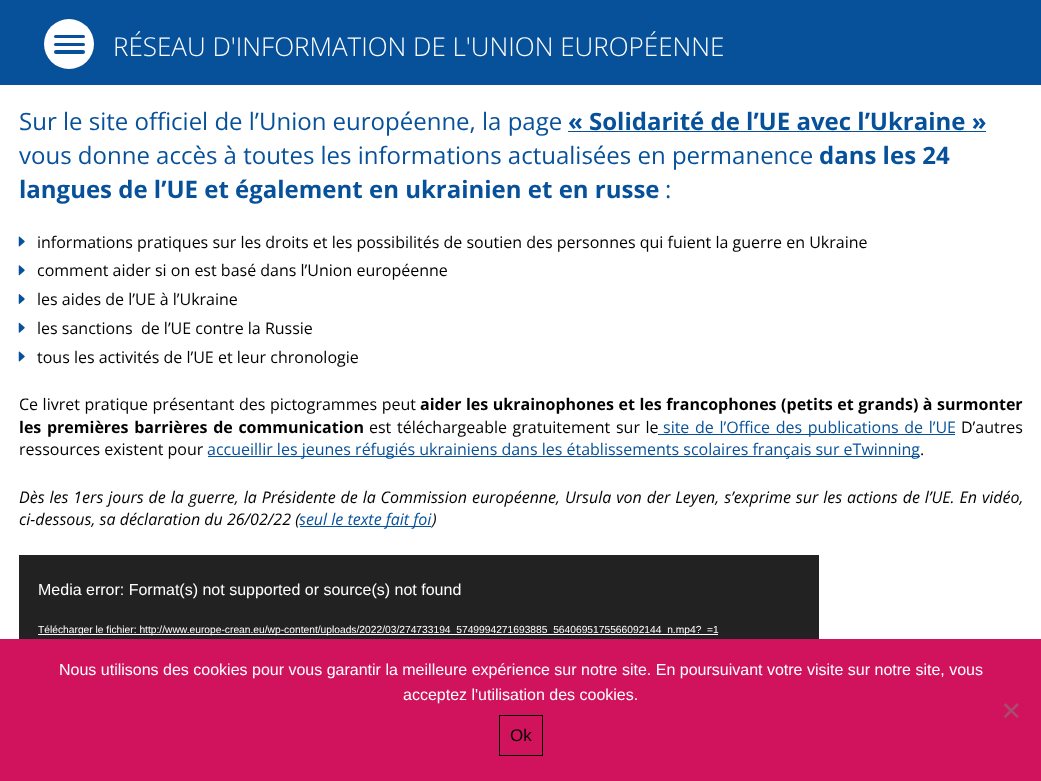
async function draw(canvas) {
  canvas.width = 1041;
  canvas.height = 781;
  const ctx = canvas.getContext('2d');
  ctx.miterLimit = 4;
  ctx.fontKerning = 'normal';
  function label(s, x, y, font, color) {
    ctx.font = font;
    ctx.fillStyle = color;
    ctx.fillText(s, x, y);
  }
  function rect(x, y, w, h, color) {
    ctx.fillStyle = color;
    ctx.fillRect(x, y, w, h);
  }
  function roundedRect(x, y, w, h, r, color) {
    ctx.fillStyle = color;
    ctx.beginPath();
    ctx.roundRect(x, y, w, h, r);
    ctx.fill();
  }
  async function image(src, x, y, w, h) {
    const img = new Image();
    img.src = src;
    await img.decode();
    ctx.drawImage(img, x, y, w, h);
  }
  let path;

  rect(0, 0, 1041, 781, '#fff');
  rect(0, 0, 1041, 85, '#07519a');
  ctx.fillStyle = '#fff';
  ctx.beginPath();
  ctx.arc(69, 44, 25, 0, 2 * Math.PI);
  ctx.fill();
  roundedRect(54, 35, 31, 3, 1.5, '#07519a');
  roundedRect(54, 43, 31, 3, 1.5, '#07519a');
  roundedRect(54, 50, 31, 4, 2, '#07519a');
  label('RÉSEAU D\'INFORMATION DE L\'UNION EUROPÉENNE', 113, 56, '300 26px Open Sans', '#fff');
  label('Sur le site officiel de l’Union européenne, la page', 19, 130, '24px Open Sans', '#07519a');
  label('« Solidarité de l’UE avec l’Ukraine »', 568, 130, 'bold 24px Open Sans', '#07519a');
  rect(568, 131, 418, 1, '#07519a');
  label('vous donne accès à toutes les informations actualisées en permanence', 19, 164, '24px Open Sans', '#07519a');
  label('dans les 24', 819, 164, 'bold 24px Open Sans', '#07519a');
  label('langues de l’UE et également en ukrainien et en russe', 19, 198, 'bold 24px Open Sans', '#07519a');
  label(':', 665, 198, '24px Open Sans', '#07519a');
  await image('assets/img1.png', 18, 236, 7, 11);
  label('informations pratiques sur les droits et les possibilités de soutien des personnes qui fuient la guerre en Ukraine', 37, 248, '16px Open Sans', '#000');
  await image('assets/img2.png', 18, 265, 7, 11);
  label('comment aider si on est basé dans l’Union européenne', 37, 276, '16px Open Sans', '#000');
  await image('assets/img3.png', 18, 294, 7, 10);
  label('les aides de l’UE à l’Ukraine', 37, 305, '16px Open Sans', '#000');
  await image('assets/img4.png', 18, 322, 7, 11);
  label('les sanctions  de l’UE contre la Russie', 37, 334, '16px Open Sans', '#000');
  await image('assets/img1.png', 18, 351, 7, 11);
  label('tous les activités de l’UE et leur chronologie', 37, 363, '16px Open Sans', '#000');
  ctx.wordSpacing = '0.4px';
  label('Ce livret pratique présentant des pictogrammes peut', 19, 410, '16px Open Sans', '#000');
  label('aider les ukrainophones et les francophones (petits et grands) à surmonter', 420, 410, 'bold 16px Open Sans', '#000');
  ctx.wordSpacing = '1.5px';
  label('les premières barrières de communication', 19, 433, 'bold 16px Open Sans', '#000');
  label('est téléchargeable gratuitement sur le', 369, 433, '16px Open Sans', '#000');
  rect(658, 434, 297, 1, '#07519a');
  label('site de l’Office des publications de l’UE', 663, 433, '16px Open Sans', '#07519a');
  ctx.wordSpacing = '0px';
  label('D’autres', 961, 433, '16px Open Sans', '#000');
  label('ressources existent pour', 19, 455, '16px Open Sans', '#000');
  rect(208, 456, 712, 1, '#07519a');
  label('accueillir les jeunes réfugiés ukrainiens dans les établissements scolaires français sur eTwinning', 207, 455, '16px Open Sans', '#07519a');
  label('.', 920, 455, '16px Open Sans', '#000');
  ctx.wordSpacing = '0.75px';
  label('Dès les 1ers jours de la guerre, la Présidente de la Commission européenne, Ursula von der Leyen, s’exprime sur les actions de l’UE. En vidéo,', 19, 503, 'italic 16px Open Sans', '#000');
  ctx.wordSpacing = '0px';
  label('ci-dessous, sa déclaration du 26/02/22 (', 19, 525, 'italic 16px Open Sans', '#000');
  rect(300, 526, 131, 1, '#07519a');
  label('seul le texte fait foi', 299, 525, 'italic 16px Open Sans', '#07519a');
  label(')', 432, 525, 'italic 16px Open Sans', '#000');
  rect(19, 555, 800, 84, '#222');
  label('Media error: Format(s) not supported or source(s) not found', 38, 595, '16px Liberation Sans', '#fff');
  rect(38, 634, 680, 1, '#fff');
  label('Télécharger le fichier: http://www.europe-crean.eu/wp-content/uploads/2022/03/274733194_5749994271693885_5640695175566092144_n.mp4?_=1', 38, 633, '10.25px Liberation Sans', '#fff');
  rect(0, 639, 1041, 142, '#d1135d');
  label('Nous utilisons des cookies pour vous garantir la meilleure expérience sur notre site. En poursuivant votre visite sur notre site, vous', 59, 675, '16px Liberation Sans', '#fff');
  label('acceptez l\'utilisation des cookies.', 403, 700, '16px Liberation Sans', '#fff');
  ctx.fillStyle = '#a94a6f';
  path = new Path2D('M1017 703L1019 705L1005.5 718L1003.5 716.5Z');
  ctx.fill(path);
  path = new Path2D('M1003.5 705L1005.5 703L1019 716.5L1017 718Z');
  ctx.fill(path);
  ctx.strokeStyle = '#000';
  ctx.strokeRect(499.5, 715.5, 43, 40);
  label('Ok', 510, 741, '17px Liberation Sans', '#000');
}

draw(document.querySelector('canvas'));
